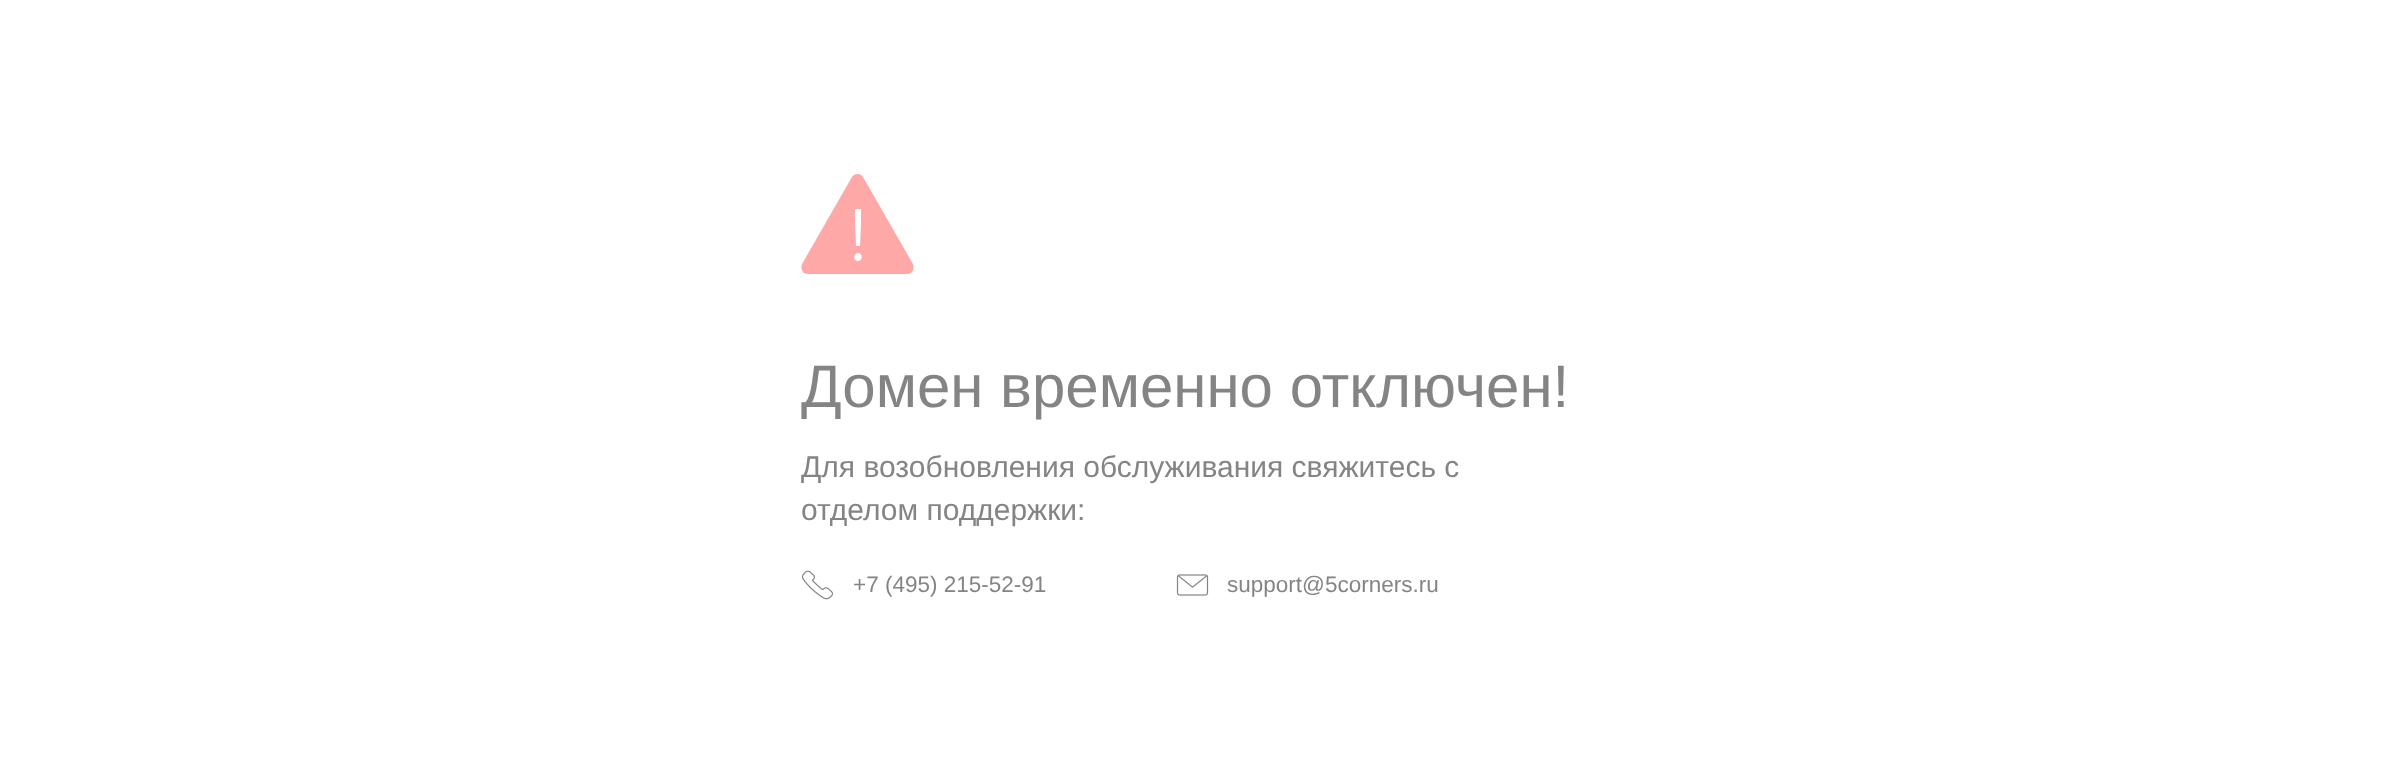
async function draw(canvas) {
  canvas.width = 2389;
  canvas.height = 774;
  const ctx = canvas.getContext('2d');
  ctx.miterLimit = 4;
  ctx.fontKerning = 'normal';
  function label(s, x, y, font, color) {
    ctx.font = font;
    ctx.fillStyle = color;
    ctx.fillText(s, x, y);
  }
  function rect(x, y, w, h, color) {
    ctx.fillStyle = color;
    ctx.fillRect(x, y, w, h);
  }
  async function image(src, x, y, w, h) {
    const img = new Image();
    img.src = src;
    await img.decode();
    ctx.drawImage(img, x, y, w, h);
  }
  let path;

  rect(0, 0, 2389, 774, '#fff');
  ctx.fillStyle = '#ffa8a8';
  path = new Path2D('M863 177C861 173 854 173 852 177L802 264C800 269 803 274 808 274H907C912 274 915 269 913 264ZM855 224L856 246H860L861 224V209H855ZM858 261C863 261 863 253 858 253C853 253 853 261 858 261Z');
  ctx.fill(path, 'evenodd');
  label('Домен временно отключен!', 801, 407, '60px Liberation Sans', '#848484');
  label('Для возобновления обслуживания свяжитесь с', 801, 477, '30px Liberation Sans', '#848484');
  label('отделом поддержки:', 801, 520, '30px Liberation Sans', '#848484');
  await image('assets/img1.png', 801, 570, 33, 30);
  label('+7 (495) 215-52-91', 853, 592, '22.5px Liberation Sans', '#848484');
  await image('assets/img2.png', 1176, 574, 33, 22);
  label('support@5corners.ru', 1227, 592, '22.5px Liberation Sans', '#848484');
}

draw(document.querySelector('canvas'));
